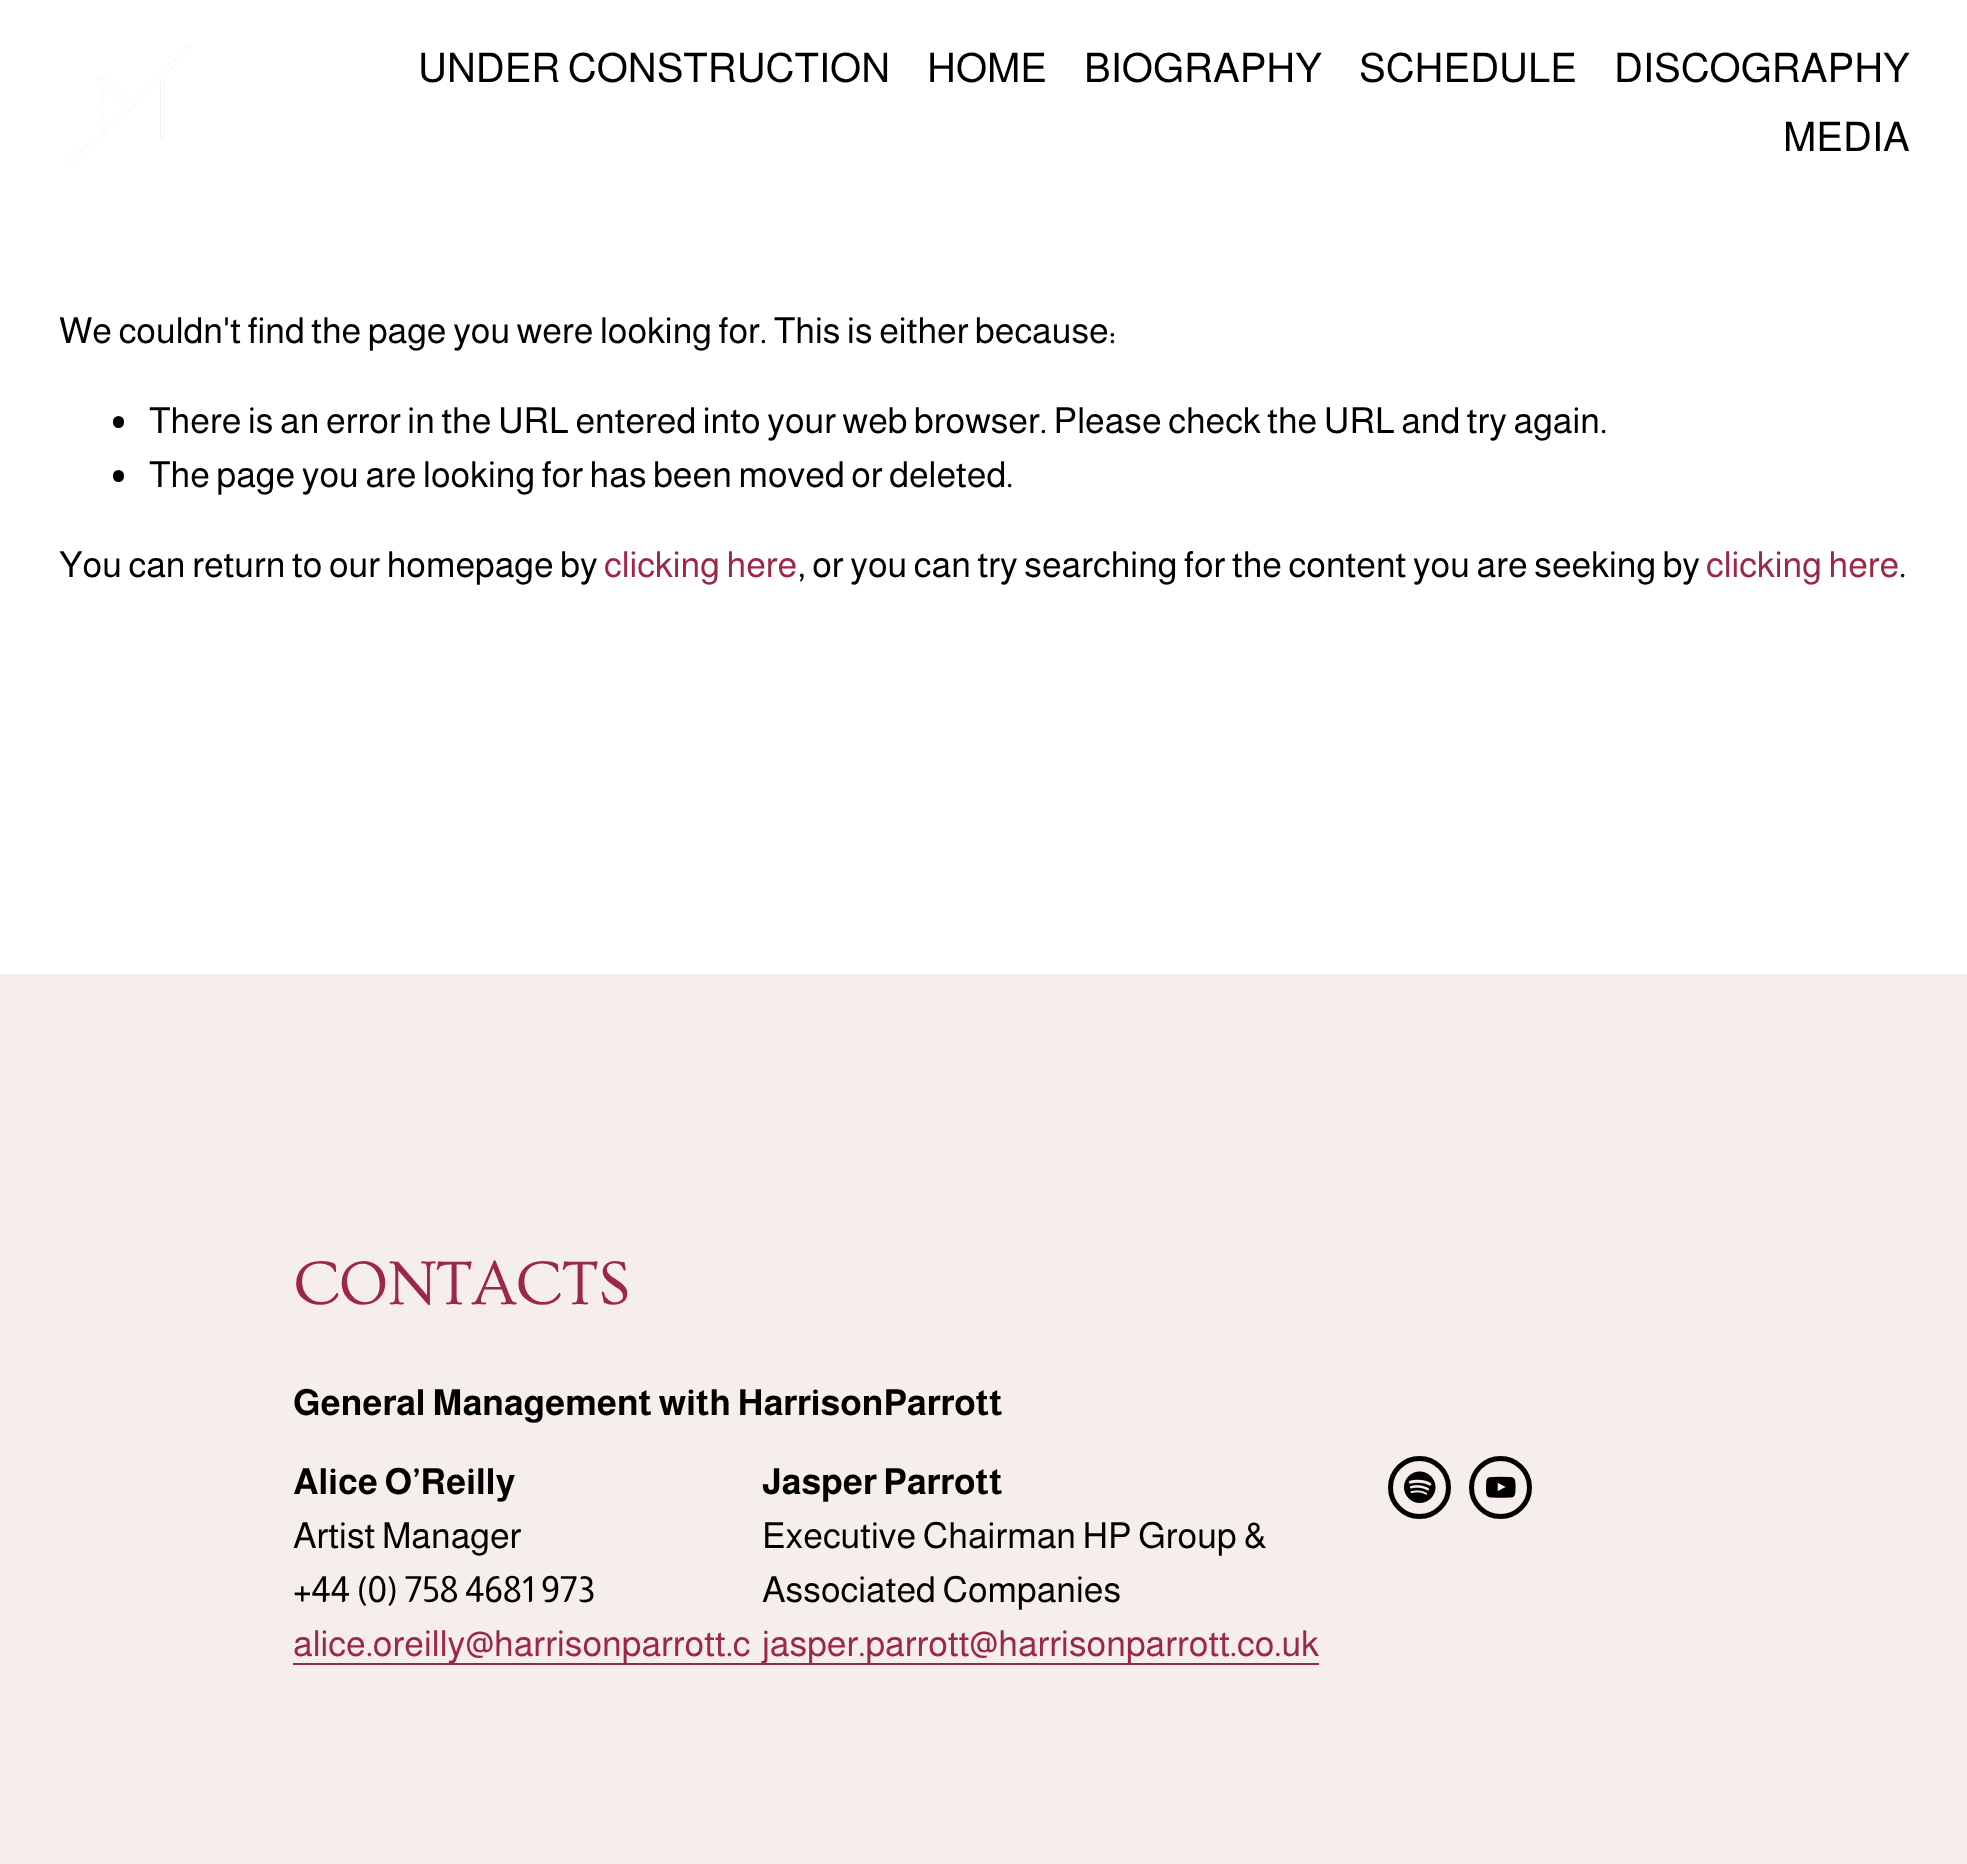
async function draw(canvas) {
  canvas.width = 1967;
  canvas.height = 1864;
  const ctx = canvas.getContext('2d');
  ctx.miterLimit = 4;
  ctx.fontKerning = 'normal';
  function label(s, x, y, font, color) {
    ctx.font = font;
    ctx.fillStyle = color;
    ctx.fillText(s, x, y);
  }
  function rect(x, y, w, h, color) {
    ctx.fillStyle = color;
    ctx.fillRect(x, y, w, h);
  }
  function roundedRect(x, y, w, h, r, color) {
    ctx.fillStyle = color;
    ctx.beginPath();
    ctx.roundRect(x, y, w, h, r);
    ctx.fill();
  }
  async function image(src, x, y, w, h) {
    const img = new Image();
    img.src = src;
    await img.decode();
    ctx.drawImage(img, x, y, w, h);
  }

  rect(0, 0, 1967, 1864, '#fff');
  await image('assets/img1.png', 70, 45, 123, 120);
  label('UNDER CONSTRUCTION', 418, 82, '40.75px Almarai', '#000');
  label('HOME', 927, 82, '40.75px Almarai', '#000');
  label('BIOGRAPHY', 1084, 82, '40.75px Almarai', '#000');
  label('SCHEDULE', 1359, 82, '40.75px Almarai', '#000');
  label('DISCOGRAPHY', 1614, 82, '40.75px Almarai', '#000');
  label('MEDIA', 1783, 151, '40.75px Almarai', '#000');
  label('We couldn\'t find the page you were looking for. This is either because:', 59, 343, '36px Almarai', '#000');
  roundedRect(113, 416, 11, 12, 5.5, '#000');
  label('There is an error in the URL entered into your web browser. Please check the URL and try again.', 149, 433, '36px Almarai', '#000');
  roundedRect(113, 470, 11, 12, 5.5, '#000');
  label('The page you are looking for has been moved or deleted.', 149, 487, '36px Almarai', '#000');
  label('You can return to our homepage by', 59, 577, '36px Almarai', '#000');
  label('clicking here', 604, 577, '36px Almarai', '#9c2847');
  label(', or you can try searching for the content you are seeking by', 798, 577, '36px Almarai', '#000');
  label('clicking here', 1706, 577, '36px Almarai', '#9c2847');
  label('.', 1899, 577, '36px Almarai', '#000');
  rect(0, 974, 1967, 890, '#f6eeea');
  ctx.letterSpacing = '-1.25px';
  label('CONTACTS', 293, 1304, '64.5px Ovo', '#9c2847');
  ctx.letterSpacing = '0px';
  label('General Management with HarrisonParrott', 293, 1415, 'bold 36px Almarai', '#000');
  label('Alice O’Reilly', 293, 1494, 'bold 36px Almarai', '#000');
  label('Artist Manager', 293, 1548, '36px Almarai', '#000');
  label('+44 (0) 758 4681 973', 293, 1602, '36px Almarai', '#000');
  rect(293, 1663, 522, 2, '#9c2847');
  label('alice.oreilly@harrisonparrott.c', 293, 1656, '36px Almarai', '#9c2847');
  label('Jasper Parrott', 762, 1494, 'bold 36px Almarai', '#000');
  label('Executive Chairman HP Group &', 762, 1548, '36px Almarai', '#000');
  label('Associated Companies', 762, 1602, '36px Almarai', '#000');
  rect(815, 1663, 504, 2, '#9c2847');
  label('jasper.parrott@harrisonparrott.co.uk', 762, 1656, '36px Almarai', '#9c2847');
  ctx.beginPath();
  ctx.arc(1419.5, 1487.5, 29, 0, 2 * Math.PI);
  ctx.strokeStyle = '#000';
  ctx.lineWidth = 5;
  ctx.stroke();
  await image('assets/img2.png', 1404, 1471, 32, 32);
  ctx.beginPath();
  ctx.arc(1500.5, 1487.5, 29, 0, 2 * Math.PI);
  ctx.stroke();
  await image('assets/img3.png', 1486, 1476, 30, 22);
}

draw(document.querySelector('canvas'));
